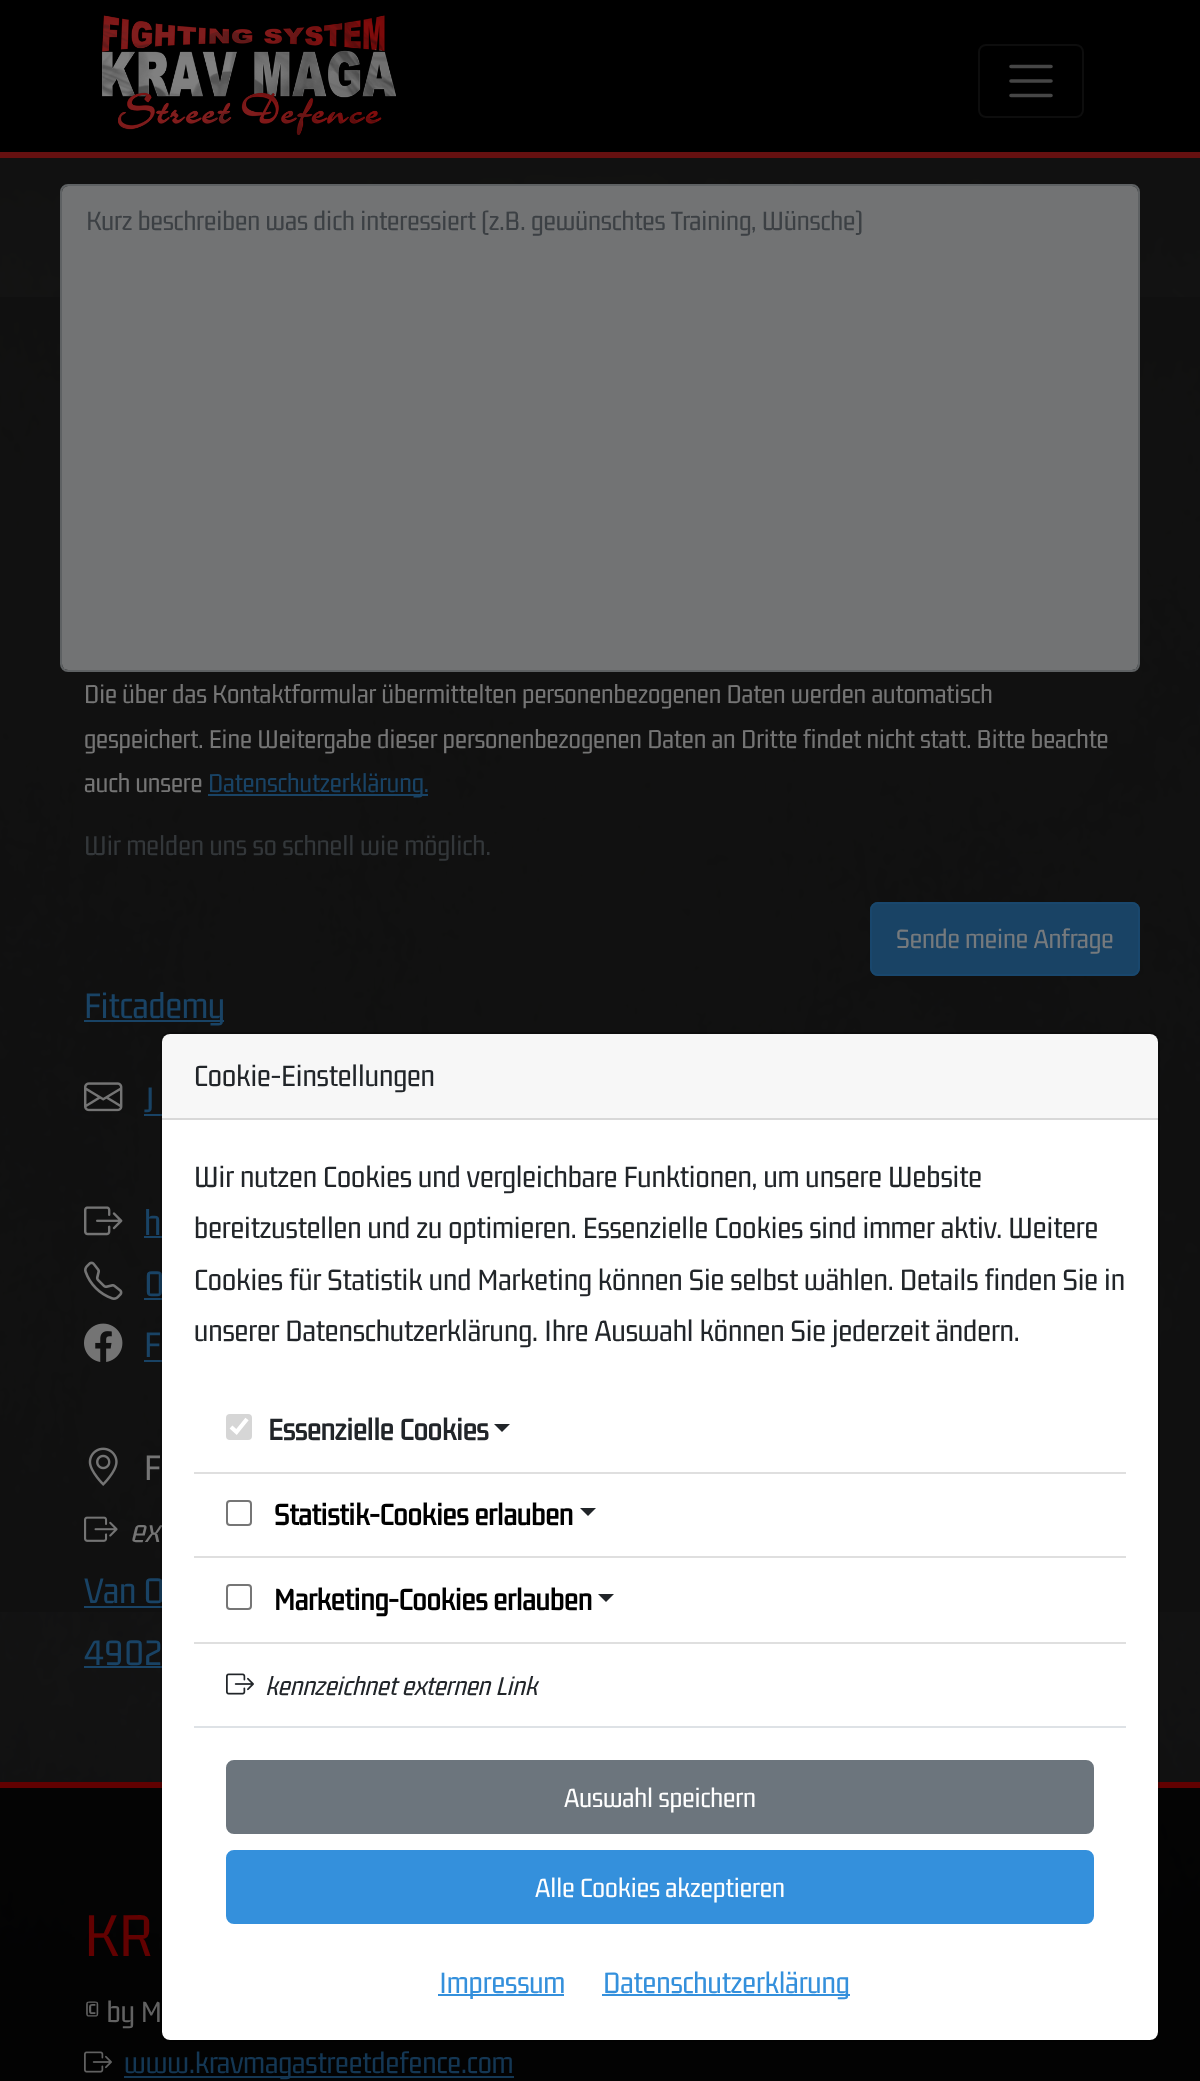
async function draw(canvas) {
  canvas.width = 1200;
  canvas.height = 2081;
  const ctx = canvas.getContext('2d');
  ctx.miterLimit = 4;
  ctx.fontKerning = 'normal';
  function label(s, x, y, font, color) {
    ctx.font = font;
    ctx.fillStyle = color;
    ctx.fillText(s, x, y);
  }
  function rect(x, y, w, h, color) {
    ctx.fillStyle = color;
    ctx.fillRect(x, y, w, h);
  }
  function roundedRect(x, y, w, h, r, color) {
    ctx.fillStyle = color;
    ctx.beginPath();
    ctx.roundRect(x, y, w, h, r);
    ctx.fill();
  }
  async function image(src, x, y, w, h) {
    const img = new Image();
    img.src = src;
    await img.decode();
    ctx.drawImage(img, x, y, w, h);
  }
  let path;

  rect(0, 0, 1200, 2081, '#101010');
  await image('assets/img1.png', 0, 158, 1200, 1857);
  rect(0, 0, 1200, 152, '#000');
  rect(0, 152, 1200, 6, '#661010');
  await image('assets/img2.png', 102, 15, 294, 120);
  ctx.beginPath();
  ctx.roundRect(979, 45, 104, 72, 7);
  ctx.strokeStyle = '#0d0d0d';
  ctx.lineWidth = 2;
  ctx.stroke();
  path = new Path2D('M1011 66.5H1051M1011 81H1051M1011 95.5H1051');
  ctx.strokeStyle = '#464646';
  ctx.lineWidth = 3.6;
  ctx.lineCap = 'round';
  ctx.stroke(path);
  rect(0, 297, 1200, 1315, '#111111e6');
  roundedRect(62, 186, 1076, 484, 6, '#727374');
  ctx.beginPath();
  ctx.roundRect(61, 185, 1078, 486, 7);
  ctx.strokeStyle = '#676a6de6';
  ctx.lineWidth = 2;
  ctx.stroke();
  label('Kurz beschreiben was dich interessiert (z.B. gewünschtes Training, Wünsche)', 86, 230, '200 28.8px Gemunu Libre', '#3c4044');
  label('Die über das Kontaktformular übermittelten personenbezogenen Daten werden automatisch', 84, 703, '200 28px Gemunu Libre', '#757575');
  label('gespeichert. Eine Weitergabe dieser personenbezogenen Daten an Dritte findet nicht statt. Bitte beachte', 84, 748, '200 28px Gemunu Libre', '#757575');
  label('auch unsere', 84, 792, '200 28px Gemunu Libre', '#757575');
  rect(208, 794, 220, 2, '#194365');
  label('Datenschutzerklärung.', 208, 792, '200 28px Gemunu Libre', '#194365');
  label('Wir melden uns so schnell wie möglich.', 84, 855, '200 29.5px Gemunu Libre', '#33373a');
  roundedRect(870, 902, 270, 74, 8, '#194365');
  ctx.beginPath();
  ctx.roundRect(871, 903, 268, 72, 7);
  ctx.strokeStyle = '#1a486ee6';
  ctx.stroke();
  label('Sende meine Anfrage', 896, 948, '200 28.8px Gemunu Libre', '#767a7d');
  rect(84, 1020, 140, 2, '#194365');
  label('Fitcademy', 84, 1018, '200 38.5px Gemunu Libre', '#194365');
  await image('assets/img3.png', 84, 1082, 39, 30);
  label('J', 144, 1112, '200 38.5px Gemunu Libre', '#194365');
  rect(144, 1114, 18, 2, '#194365');
  await image('assets/img4.png', 84, 1206, 39, 30);
  label('h', 144, 1235, '200 38.5px Gemunu Libre', '#194365');
  rect(144, 1236, 18, 2, '#194365');
  await image('assets/img5.png', 84, 1261, 39, 39);
  label('0', 144, 1296, '200 38.5px Gemunu Libre', '#194365');
  rect(144, 1298, 18, 2, '#194365');
  await image('assets/img6.png', 84, 1323, 39, 39);
  label('F', 144, 1357, '200 38.5px Gemunu Libre', '#194365');
  rect(144, 1360, 18, 2, '#194365');
  await image('assets/img7.png', 88, 1447, 30, 39);
  label('F', 144, 1480, '200 38.5px Gemunu Libre', '#757575');
  await image('assets/img8.png', 84, 1516, 34, 26);
  label('ex', 130, 1542, 'italic 200 34px Gemunu Libre', '#757575');
  label('Van O', 84, 1603, '200 38.5px Gemunu Libre', '#194365');
  rect(84, 1606, 78, 2, '#194365');
  label('4902', 84, 1665, '200 38.5px Gemunu Libre', '#194365');
  rect(84, 1666, 78, 2, '#194365');
  rect(0, 1788, 1200, 293, '#000000c2');
  rect(0, 1782, 1200, 6, '#620101');
  label('KR', 84, 1956, '200 64px Gemunu Libre', '#620101');
  label('© by M', 84, 2022, '200 32px Gemunu Libre', '#626262');
  await image('assets/img9.png', 84, 2051, 28, 22);
  rect(124, 2076, 390, 2, '#143754');
  label('www.kravmagastreetdefence.com', 124, 2073, '200 32px Gemunu Libre', '#143754');
  roundedRect(162, 1034, 996, 1006, 8, '#fff');
  ctx.beginPath();
  ctx.roundRect(161, 1033, 998, 1008, 9);
  ctx.strokeStyle = '#00000033';
  ctx.stroke();
  rect(162, 1034, 996, 84, '#00000008');
  rect(162, 1118, 996, 2, '#d8d8d8');
  label('Cookie-Einstellungen', 194, 1086, '200 32px Gemunu Libre', '#212529');
  label('Wir nutzen Cookies und vergleichbare Funktionen, um unsere Website', 194, 1187, '200 32px Gemunu Libre', '#212529');
  label('bereitzustellen und zu optimieren. Essenzielle Cookies sind immer aktiv. Weitere', 194, 1238, '200 32px Gemunu Libre', '#212529');
  label('Cookies für Statistik und Marketing können Sie selbst wählen. Details finden Sie in', 194, 1290, '200 32px Gemunu Libre', '#212529');
  label('unserer Datenschutzerklärung. Ihre Auswahl können Sie jederzeit ändern.', 194, 1341, '200 32px Gemunu Libre', '#212529');
  rect(194, 1472, 932, 2, '#dfdfdf');
  roundedRect(226, 1414, 26, 26, 4, '#d6d6d6');
  path = new Path2D('M231 1427L236.5 1432L247 1419');
  ctx.strokeStyle = '#fff';
  ctx.lineWidth = 4.2;
  ctx.lineCap = 'butt';
  ctx.stroke(path);
  label('Essenzielle Cookies', 268, 1440, 'bold 32px Gemunu Libre', '#212529');
  path = new Path2D('M494 1424H510L502 1432Z');
  ctx.fill(path);
  rect(194, 1556, 932, 2, '#dfdfdf');
  ctx.beginPath();
  ctx.roundRect(227, 1501, 24, 24, 3);
  ctx.strokeStyle = '#767676';
  ctx.lineWidth = 2;
  ctx.stroke();
  label('Statistik-Cookies erlauben', 274, 1525, 'bold 32px Gemunu Libre', '#000');
  ctx.fillStyle = '#212529';
  path = new Path2D('M580 1508H596L588 1516Z');
  ctx.fill(path);
  rect(194, 1642, 932, 2, '#dfdfdf');
  ctx.beginPath();
  ctx.roundRect(227, 1585, 24, 24, 3);
  ctx.stroke();
  label('Marketing-Cookies erlauben', 274, 1610, 'bold 32px Gemunu Libre', '#000');
  ctx.fillStyle = '#212529';
  path = new Path2D('M598 1594H614L606 1602Z');
  ctx.fill(path);
  await image('assets/img10.png', 226, 1673, 28, 22);
  label('kennzeichnet externen Link', 265, 1695, 'italic 200 28px Gemunu Libre', '#212529');
  rect(194, 1726, 932, 2, '#dee2e6');
  ctx.fillStyle = '#6c757d';
  ctx.beginPath();
  ctx.roundRect(227, 1761, 866, 72, 7);
  ctx.fill();
  ctx.strokeStyle = '#6c757d';
  ctx.stroke();
  label('Auswahl speichern', 564, 1807, '200 28.8px Gemunu Libre', '#fff');
  ctx.fillStyle = '#3490dc';
  ctx.beginPath();
  ctx.roundRect(227, 1851, 866, 72, 7);
  ctx.fill();
  ctx.strokeStyle = '#3490dc';
  ctx.stroke();
  label('Alle Cookies akzeptieren', 535, 1897, '200 28.8px Gemunu Libre', '#fff');
  rect(438, 1994, 126, 2, '#3490dc');
  label('Impressum', 439, 1993, '200 32px Gemunu Libre', '#3490dc');
  rect(602, 1994, 248, 2, '#3490dc');
  label('Datenschutzerklärung', 603, 1993, '200 32px Gemunu Libre', '#3490dc');
}

draw(document.querySelector('canvas'));
